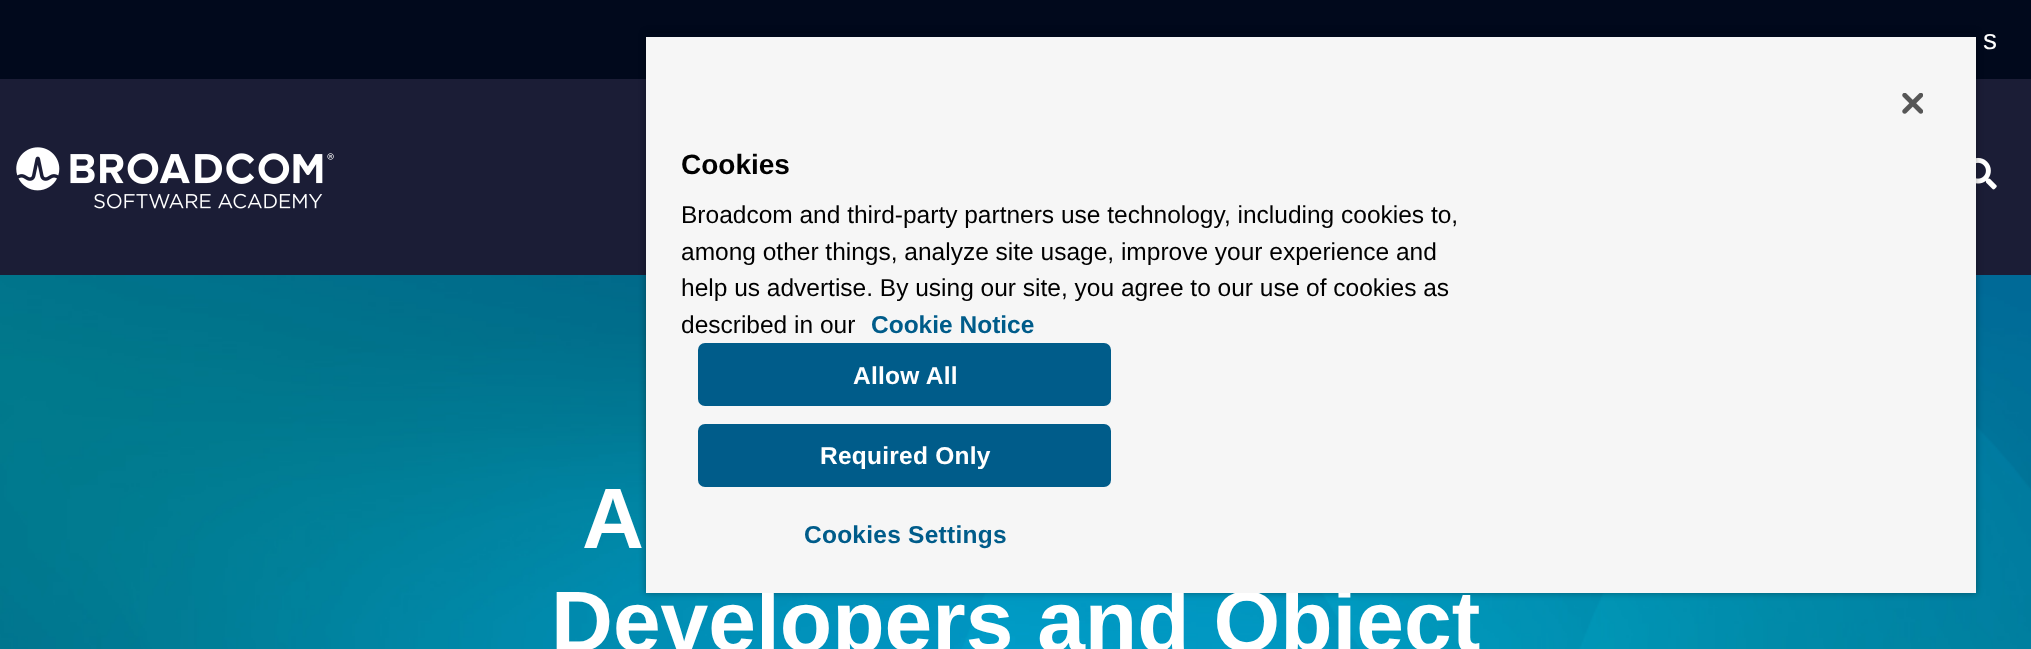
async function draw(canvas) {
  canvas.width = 2031;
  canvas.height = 649;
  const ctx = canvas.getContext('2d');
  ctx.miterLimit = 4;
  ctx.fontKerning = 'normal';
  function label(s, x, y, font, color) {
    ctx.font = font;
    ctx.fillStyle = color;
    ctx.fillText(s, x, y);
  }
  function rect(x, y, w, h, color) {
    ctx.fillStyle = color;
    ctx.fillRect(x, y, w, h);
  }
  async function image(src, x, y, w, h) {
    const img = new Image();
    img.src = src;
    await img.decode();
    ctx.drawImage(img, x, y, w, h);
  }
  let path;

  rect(0, 0, 2031, 649, '#fff');
  rect(0, 79, 2031, 196, '#1b1d36');
  rect(0, 0, 2031, 79, '#01091c');
  label('s', 1983, 49, '28px Liberation Sans', '#fff');
  await image('assets/img1.png', 16, 147, 318, 62);
  await image('assets/img2.png', 1976, 157, 21, 33);
  await image('assets/img4.png', 0, 275, 2031, 374);
  ctx.save();
  path = new Path2D('M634 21H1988V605H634ZM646 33H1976V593H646Z');
  ctx.clip(path, 'evenodd');
  ctx.fillStyle = '#00000059';
  ctx.filter = 'blur(3.5px)';
  ctx.beginPath();
  ctx.rect(646, 33, 1330, 560);
  ctx.fill();
  ctx.filter = 'none';
  ctx.restore();
  ctx.save();
  ctx.beginPath();
  ctx.rect(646, 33, 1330, 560);
  ctx.clip();
  ctx.fillStyle = '#00000033';
  ctx.filter = 'blur(3.5px)';
  ctx.beginPath();
  ctx.rect(646, 37, 1330, 556);
  ctx.fill();
  ctx.filter = 'none';
  ctx.restore();
  label('Developers and Object', 551, 651, 'bold 85.75px Liberation Sans', '#fff');
  rect(646, 37, 1330, 556, '#f6f6f6');
  await image('assets/img3.png', 1902, 93, 21, 21);
  label('Cookies', 681, 174, 'bold 28px Liberation Sans', '#000');
  label('Broadcom and third-party partners use technology, including cookies to,', 681, 223, '24.5px Liberation Sans', '#000');
  label('among other things, analyze site usage, improve your experience and', 681, 260, '24.5px Liberation Sans', '#000');
  label('help us advertise. By using our site, you agree to our use of cookies as', 681, 296, '24.5px Liberation Sans', '#000');
  label('described in our', 681, 333, '24.5px Liberation Sans', '#000');
  label('Cookie Notice', 871, 333, 'bold 24.5px Liberation Sans', '#005c8a');
  ctx.beginPath();
  ctx.roundRect(699, 344, 411, 61, 6);
  ctx.fill();
  ctx.strokeStyle = '#005c8a';
  ctx.lineWidth = 2;
  ctx.stroke();
  ctx.letterSpacing = '0.25px';
  label('Allow All', 853, 384, 'bold 24.5px Liberation Sans', '#fff');
  ctx.fillStyle = '#005c8a';
  ctx.beginPath();
  ctx.roundRect(699, 425, 411, 61, 6);
  ctx.fill();
  ctx.stroke();
  label('Required Only', 820, 464, 'bold 24.5px Liberation Sans', '#fff');
  label('Cookies Settings', 804, 543, 'bold 24.5px Liberation Sans', '#005c8a');
  ctx.letterSpacing = '0px';
  label('A', 582, 548, 'bold 85.75px Liberation Sans', '#fff');
}

draw(document.querySelector('canvas'));
